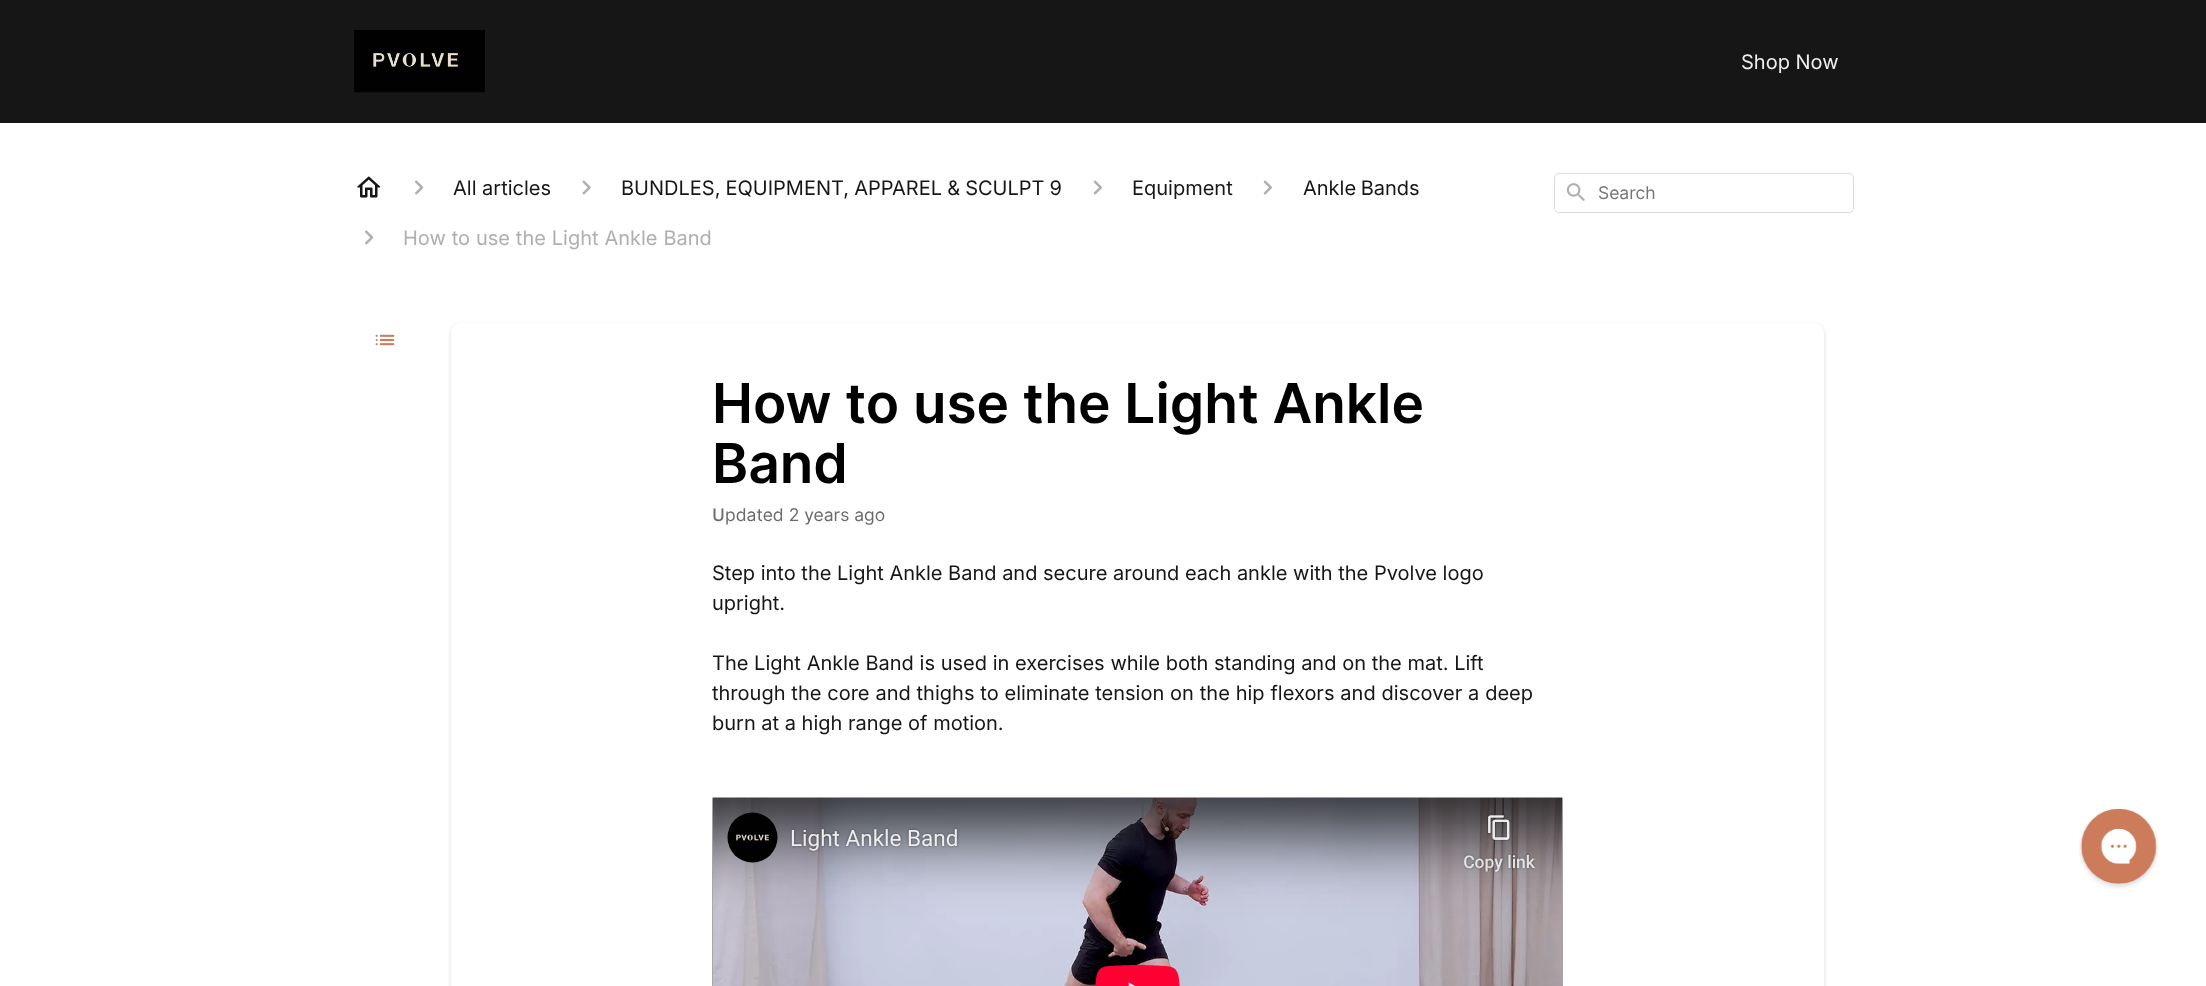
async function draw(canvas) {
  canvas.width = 2206;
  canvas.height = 986;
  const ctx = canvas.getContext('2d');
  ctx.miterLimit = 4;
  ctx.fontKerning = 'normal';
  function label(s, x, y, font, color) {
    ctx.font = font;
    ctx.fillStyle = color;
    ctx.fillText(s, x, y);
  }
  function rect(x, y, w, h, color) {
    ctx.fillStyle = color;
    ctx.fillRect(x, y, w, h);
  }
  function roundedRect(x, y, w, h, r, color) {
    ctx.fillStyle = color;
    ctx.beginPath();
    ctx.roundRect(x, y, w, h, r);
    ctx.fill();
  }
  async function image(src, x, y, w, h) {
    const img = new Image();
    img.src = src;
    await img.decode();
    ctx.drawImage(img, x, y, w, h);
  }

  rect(0, 0, 2206, 986, '#fff');
  rect(0, 0, 2206, 123, '#161616');
  await image('assets/img1.png', 354, 30, 131, 63);
  label('Shop Now', 1741, 69, '20px Inter', '#eee');
  await image('assets/img2.png', 357, 176, 24, 22);
  await image('assets/img3.png', 415, 180, 9, 15);
  label('All articles', 453, 195, '20px Inter', '#161616');
  await image('assets/img4.png', 582, 180, 9, 15);
  ctx.wordSpacing = '-0.5px';
  label('BUNDLES, EQUIPMENT, APPAREL & SCULPT 9', 621, 195, '20px Inter', '#161616');
  await image('assets/img5.png', 1093, 180, 9, 15);
  ctx.wordSpacing = '0px';
  label('Equipment', 1132, 195, '20px Inter', '#161616');
  await image('assets/img5.png', 1263, 180, 9, 15);
  ctx.wordSpacing = '-1px';
  label('Ankle Bands', 1303, 195, '20px Inter', '#161616');
  await image('assets/img3.png', 365, 230, 9, 15);
  ctx.wordSpacing = '0.25px';
  label('How to use the Light Ankle Band', 403, 245, '20px Inter', '#afafaf');
  ctx.beginPath();
  ctx.roundRect(1554.5, 173.5, 299, 39, 4.5);
  ctx.strokeStyle = '#ddd';
  ctx.stroke();
  await image('assets/img6.png', 1566, 183, 19, 18);
  ctx.wordSpacing = '0px';
  label('Search', 1598, 199, '17.5px "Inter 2"', '#757575');
  await image('assets/img7.png', 375, 334, 20, 12);
  ctx.fillStyle = '#16161629';
  ctx.filter = 'blur(2.5px)';
  ctx.beginPath();
  ctx.roundRect(451, 325, 1373, 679, 10);
  ctx.fill();
  ctx.filter = 'none';
  roundedRect(451, 323, 1373, 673, 10, '#fff');
  label('How to use the Light Ankle', 712, 423, '600 55px Inter', '#000');
  label('Band', 712, 483, '600 55px Inter', '#000');
  label('U', 712, 521, '500 17.5px Noto Sans', '#6a6a6a');
  label('pdated 2 years ago', 725, 521, '17.5px "Inter 2"', '#6a6a6a');
  label('Step into the Light Ankle Band and secure around each ankle with the Pvolve logo', 712, 580, '20px Inter', '#161616');
  label('upright.', 712, 610, '20px Inter', '#161616');
  ctx.wordSpacing = '0.1px';
  label('The Light Ankle Band is used in exercises while both standing and on the mat. Lift', 712, 670, '20px Inter', '#161616');
  ctx.wordSpacing = '0.25px';
  label('through the core and thighs to eliminate tension on the hip flexors and discover a deep', 712, 700, '20px Inter', '#161616');
  ctx.wordSpacing = '0px';
  label('burn at a high range of motion.', 712, 730, '20px Inter', '#161616');
  await image('assets/img8.png', 712, 797, 851, 189);
  await image('assets/img9.png', 2079, 808, 80, 81);
}

draw(document.querySelector('canvas'));
